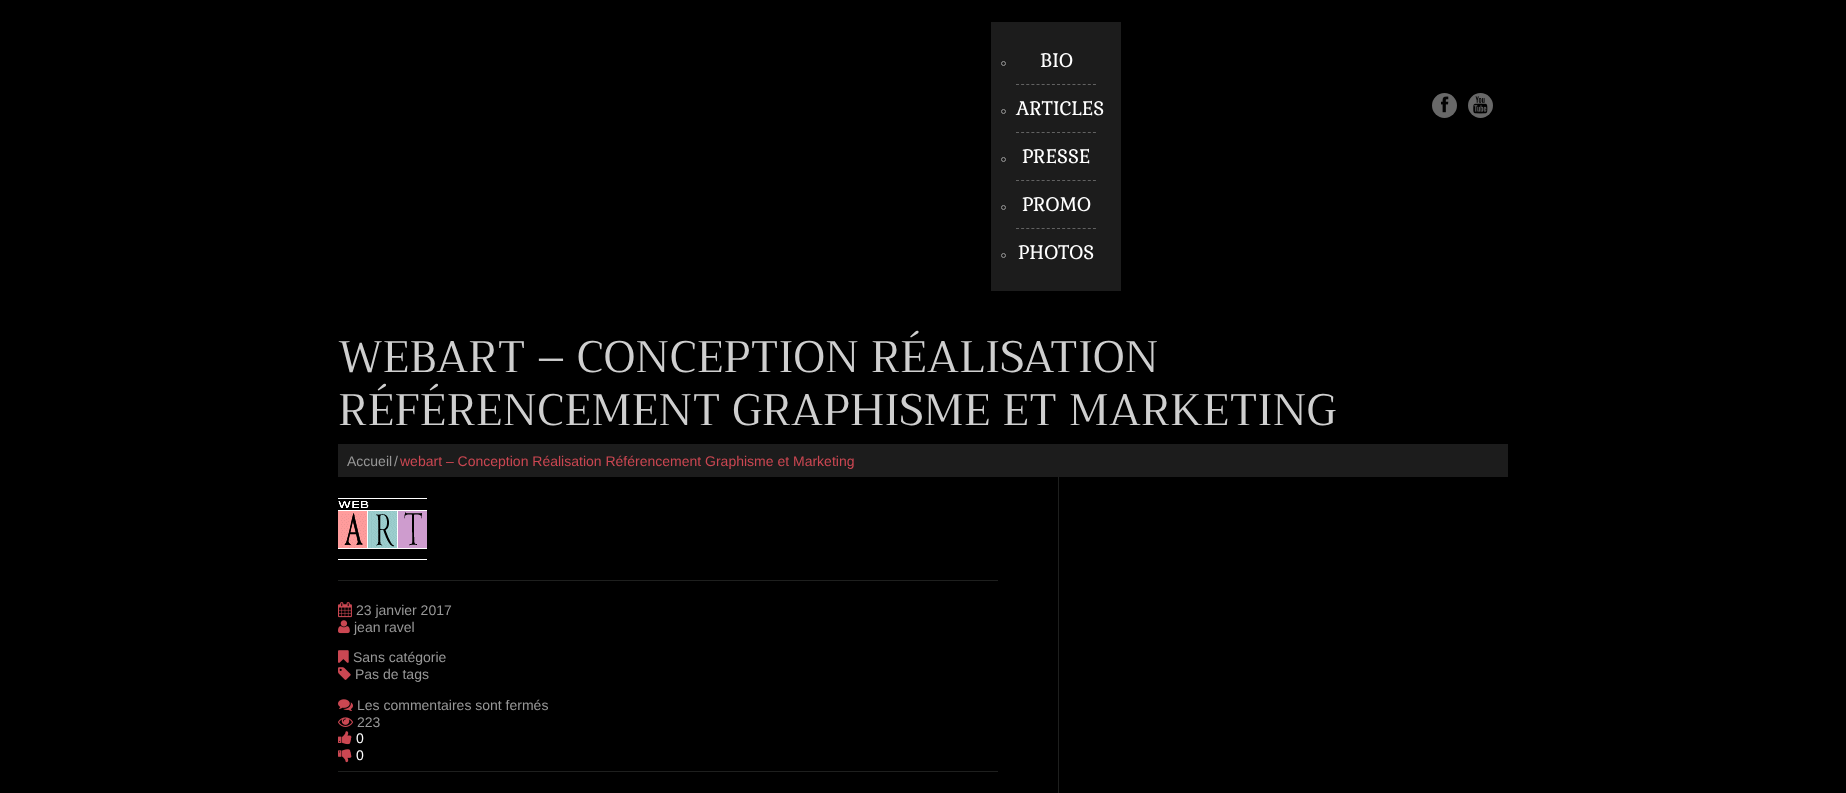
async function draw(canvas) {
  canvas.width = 1846;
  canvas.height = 793;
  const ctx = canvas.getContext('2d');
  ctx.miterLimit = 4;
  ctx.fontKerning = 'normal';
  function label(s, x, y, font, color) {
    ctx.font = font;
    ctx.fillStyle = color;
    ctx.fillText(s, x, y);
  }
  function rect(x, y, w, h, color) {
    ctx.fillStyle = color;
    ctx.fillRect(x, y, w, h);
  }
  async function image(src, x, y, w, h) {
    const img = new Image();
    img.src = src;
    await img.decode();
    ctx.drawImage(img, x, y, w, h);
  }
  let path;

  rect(0, 0, 1846, 793, '#000');
  rect(991, 22, 130, 269, '#1c1c1c');
  ctx.beginPath();
  ctx.arc(1003.5, 63.5, 2, 0, 2 * Math.PI);
  ctx.strokeStyle = '#989898';
  ctx.stroke();
  label('BIO', 1040, 67, '19px Gabriela', '#fff');
  path = new Path2D('M1016 84.5H1096');
  ctx.strokeStyle = '#626262';
  ctx.setLineDash([3, 2.13]);
  ctx.stroke(path);
  ctx.beginPath();
  ctx.arc(1003.5, 111.5, 2, 0, 2 * Math.PI);
  ctx.strokeStyle = '#989898';
  ctx.setLineDash([]);
  ctx.stroke();
  label('ARTICLES', 1016, 115, '19px Gabriela', '#fff');
  path = new Path2D('M1016 132.5H1096');
  ctx.strokeStyle = '#626262';
  ctx.setLineDash([3, 2.13]);
  ctx.stroke(path);
  ctx.beginPath();
  ctx.arc(1003.5, 159.5, 2, 0, 2 * Math.PI);
  ctx.strokeStyle = '#989898';
  ctx.setLineDash([]);
  ctx.stroke();
  label('PRESSE', 1022, 163, '19px Gabriela', '#fff');
  path = new Path2D('M1016 180.5H1096');
  ctx.strokeStyle = '#626262';
  ctx.setLineDash([3, 2.13]);
  ctx.stroke(path);
  ctx.beginPath();
  ctx.arc(1003.5, 207.5, 2, 0, 2 * Math.PI);
  ctx.strokeStyle = '#989898';
  ctx.setLineDash([]);
  ctx.stroke();
  label('PROMO', 1022, 211, '19px Gabriela', '#fff');
  path = new Path2D('M1016 228.5H1096');
  ctx.strokeStyle = '#626262';
  ctx.setLineDash([3, 2.13]);
  ctx.stroke(path);
  ctx.beginPath();
  ctx.arc(1003.5, 255.5, 2, 0, 2 * Math.PI);
  ctx.strokeStyle = '#989898';
  ctx.setLineDash([]);
  ctx.stroke();
  label('PHOTOS', 1018, 259, '19px Gabriela', '#fff');
  ctx.fillStyle = '#686868';
  ctx.beginPath();
  ctx.arc(1444.5, 105.5, 12.5, 0, 2 * Math.PI);
  ctx.fill();
  await image('assets/img1.png', 1441, 96, 8, 17);
  ctx.beginPath();
  ctx.arc(1480.5, 105.5, 12.5, 0, 2 * Math.PI);
  ctx.fill();
  await image('assets/img2.png', 1473, 96, 15, 18);
  label('WEBART – CONCEPTION RÉALISATION', 338, 372, '44px Trirong', '#cfcfcf');
  label('RÉFÉRENCEMENT GRAPHISME ET MARKETING', 338, 425, '44px Trirong', '#cfcfcf');
  rect(338, 444, 1170, 33, '#1c1c1c');
  label('Accueil', 347, 466, '14px Liberation Sans', '#989898');
  label('/', 394, 466, '14px Liberation Sans', '#989898');
  label('webart – Conception Réalisation Référencement Graphisme et Marketing', 400, 466, '14px Liberation Sans', '#cb4752');
  rect(1058, 477, 1, 316, '#1e1f1e');
  await image('assets/img3.png', 338, 498, 89, 62);
  rect(338, 580, 660, 1, '#1e1f1e');
  rect(338, 771, 660, 1, '#1e1f1e');
  await image('assets/img4.png', 338, 602, 14, 16);
  label('23 janvier 2017', 356, 615, '14px Liberation Sans', '#989898');
  await image('assets/img5.png', 338, 620, 12, 14);
  label('jean ravel', 354, 632, '14px Liberation Sans', '#989898');
  await image('assets/img6.png', 338, 650, 11, 13);
  label('Sans catégorie', 353, 662, '14px Liberation Sans', '#989898');
  await image('assets/img7.png', 338, 667, 13, 13);
  label('Pas de tags', 355, 679, '14px Liberation Sans', '#989898');
  await image('assets/img8.png', 338, 699, 15, 12);
  label('Les commentaires sont fermés', 357, 710, '14px Liberation Sans', '#989898');
  await image('assets/img9.png', 338, 717, 15, 10);
  label('223', 357, 727, '14px Liberation Sans', '#989898');
  await image('assets/img10.png', 338, 731, 14, 14);
  label('0', 356, 743, '14px Liberation Sans', '#fff');
  await image('assets/img11.png', 338, 749, 14, 14);
  label('0', 356, 760, '14px Liberation Sans', '#fff');
}

draw(document.querySelector('canvas'));
